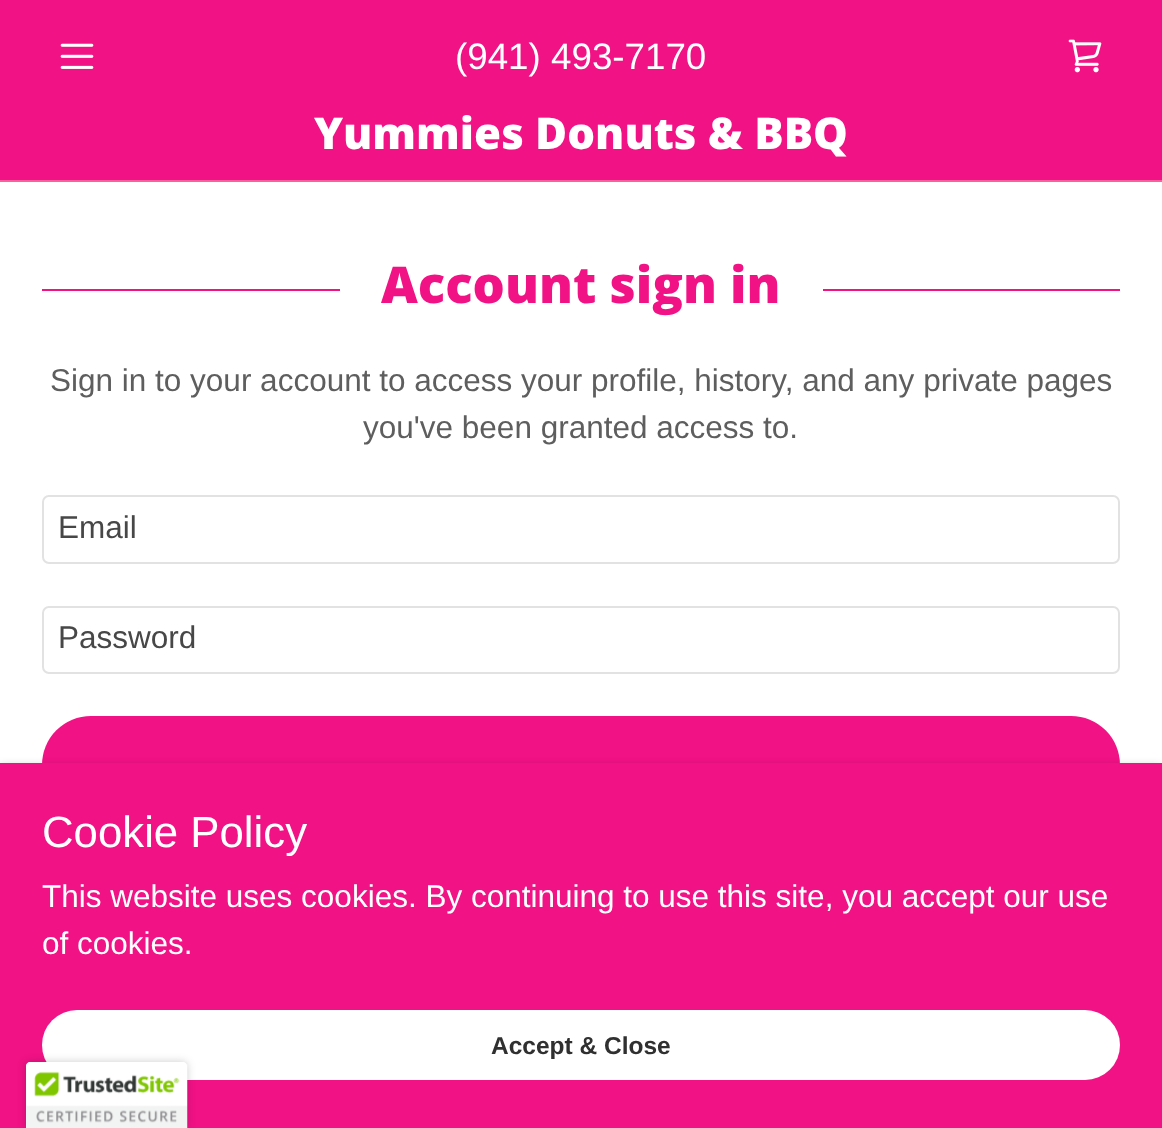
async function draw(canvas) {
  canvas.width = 1162;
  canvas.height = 1128;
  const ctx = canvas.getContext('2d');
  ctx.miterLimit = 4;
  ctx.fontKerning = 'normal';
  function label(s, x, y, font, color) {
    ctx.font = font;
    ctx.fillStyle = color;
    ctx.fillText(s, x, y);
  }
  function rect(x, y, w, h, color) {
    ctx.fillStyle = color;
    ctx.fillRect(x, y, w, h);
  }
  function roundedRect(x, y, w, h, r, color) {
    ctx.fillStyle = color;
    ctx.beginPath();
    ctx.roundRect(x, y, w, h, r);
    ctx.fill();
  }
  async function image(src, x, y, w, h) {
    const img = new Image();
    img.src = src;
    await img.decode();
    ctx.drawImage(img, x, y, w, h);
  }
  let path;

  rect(0, 0, 1162, 1128, '#f11286');
  await image('assets/img1.png', 60, 43, 34, 26);
  label('(941) 493-7170', 455, 69, '36.75px Liberation Sans', '#fff');
  await image('assets/img2.png', 1068, 39, 34, 34);
  label('Yummies Donuts & BBQ', 314, 149, '800 43.75px Open Sans', '#fff');
  rect(0, 180, 1162, 2, '#fd5e9e');
  rect(0, 182, 1162, 581, '#fff');
  rect(42, 289, 298, 2, '#f11286');
  label('Account sign in', 381, 303, '800 50.75px Open Sans', '#f11286');
  rect(823, 289, 297, 2, '#f11286');
  label('Sign in to your account to access your profile, history, and any private pages', 50, 391, '31.5px Liberation Sans', '#5e5e5e');
  label('you\'ve been granted access to.', 363, 438, '31.5px Liberation Sans', '#5e5e5e');
  ctx.beginPath();
  ctx.roundRect(43, 496, 1076, 67, 6);
  ctx.strokeStyle = '#e2e2e2';
  ctx.lineWidth = 2;
  ctx.stroke();
  label('Email', 58, 538, '31.5px Liberation Sans', '#474747');
  ctx.beginPath();
  ctx.roundRect(43, 607, 1076, 66, 6);
  ctx.stroke();
  label('Password', 58, 648, '31.5px Liberation Sans', '#474747');
  roundedRect(42, 716, 1078, 98, 49, '#f11286');
  ctx.fillStyle = '#0000004d';
  ctx.filter = 'blur(5px)';
  ctx.beginPath();
  ctx.rect(0, 767, 1162, 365);
  ctx.fill();
  ctx.filter = 'none';
  rect(0, 763, 1162, 365, '#f11286');
  label('Cookie Policy', 42, 847, '43.75px Liberation Sans', '#fff');
  label('This website uses cookies. By continuing to use this site, you accept our use', 42, 907, '31.5px Liberation Sans', '#fff');
  label('of cookies.', 42, 954, '31.5px Liberation Sans', '#fff');
  roundedRect(42, 1010, 1078, 70, 35, '#fff');
  label('Accept & Close', 491, 1054, 'bold 24.5px Liberation Sans', '#303030');
  ctx.fillStyle = '#00000033';
  ctx.filter = 'blur(4.5px)';
  ctx.beginPath();
  ctx.roundRect(26, 1062, 161, 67, 4);
  ctx.fill();
  ctx.filter = 'none';
  ctx.fillStyle = '#fff';
  path = new Path2D('M30 1062H183C185 1062 187 1064 187 1066V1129H26V1066C26 1064 28 1062 30 1062Z');
  ctx.fill(path);
  await image('assets/img3.png', 26, 1062, 162, 66);
}

draw(document.querySelector('canvas'));
